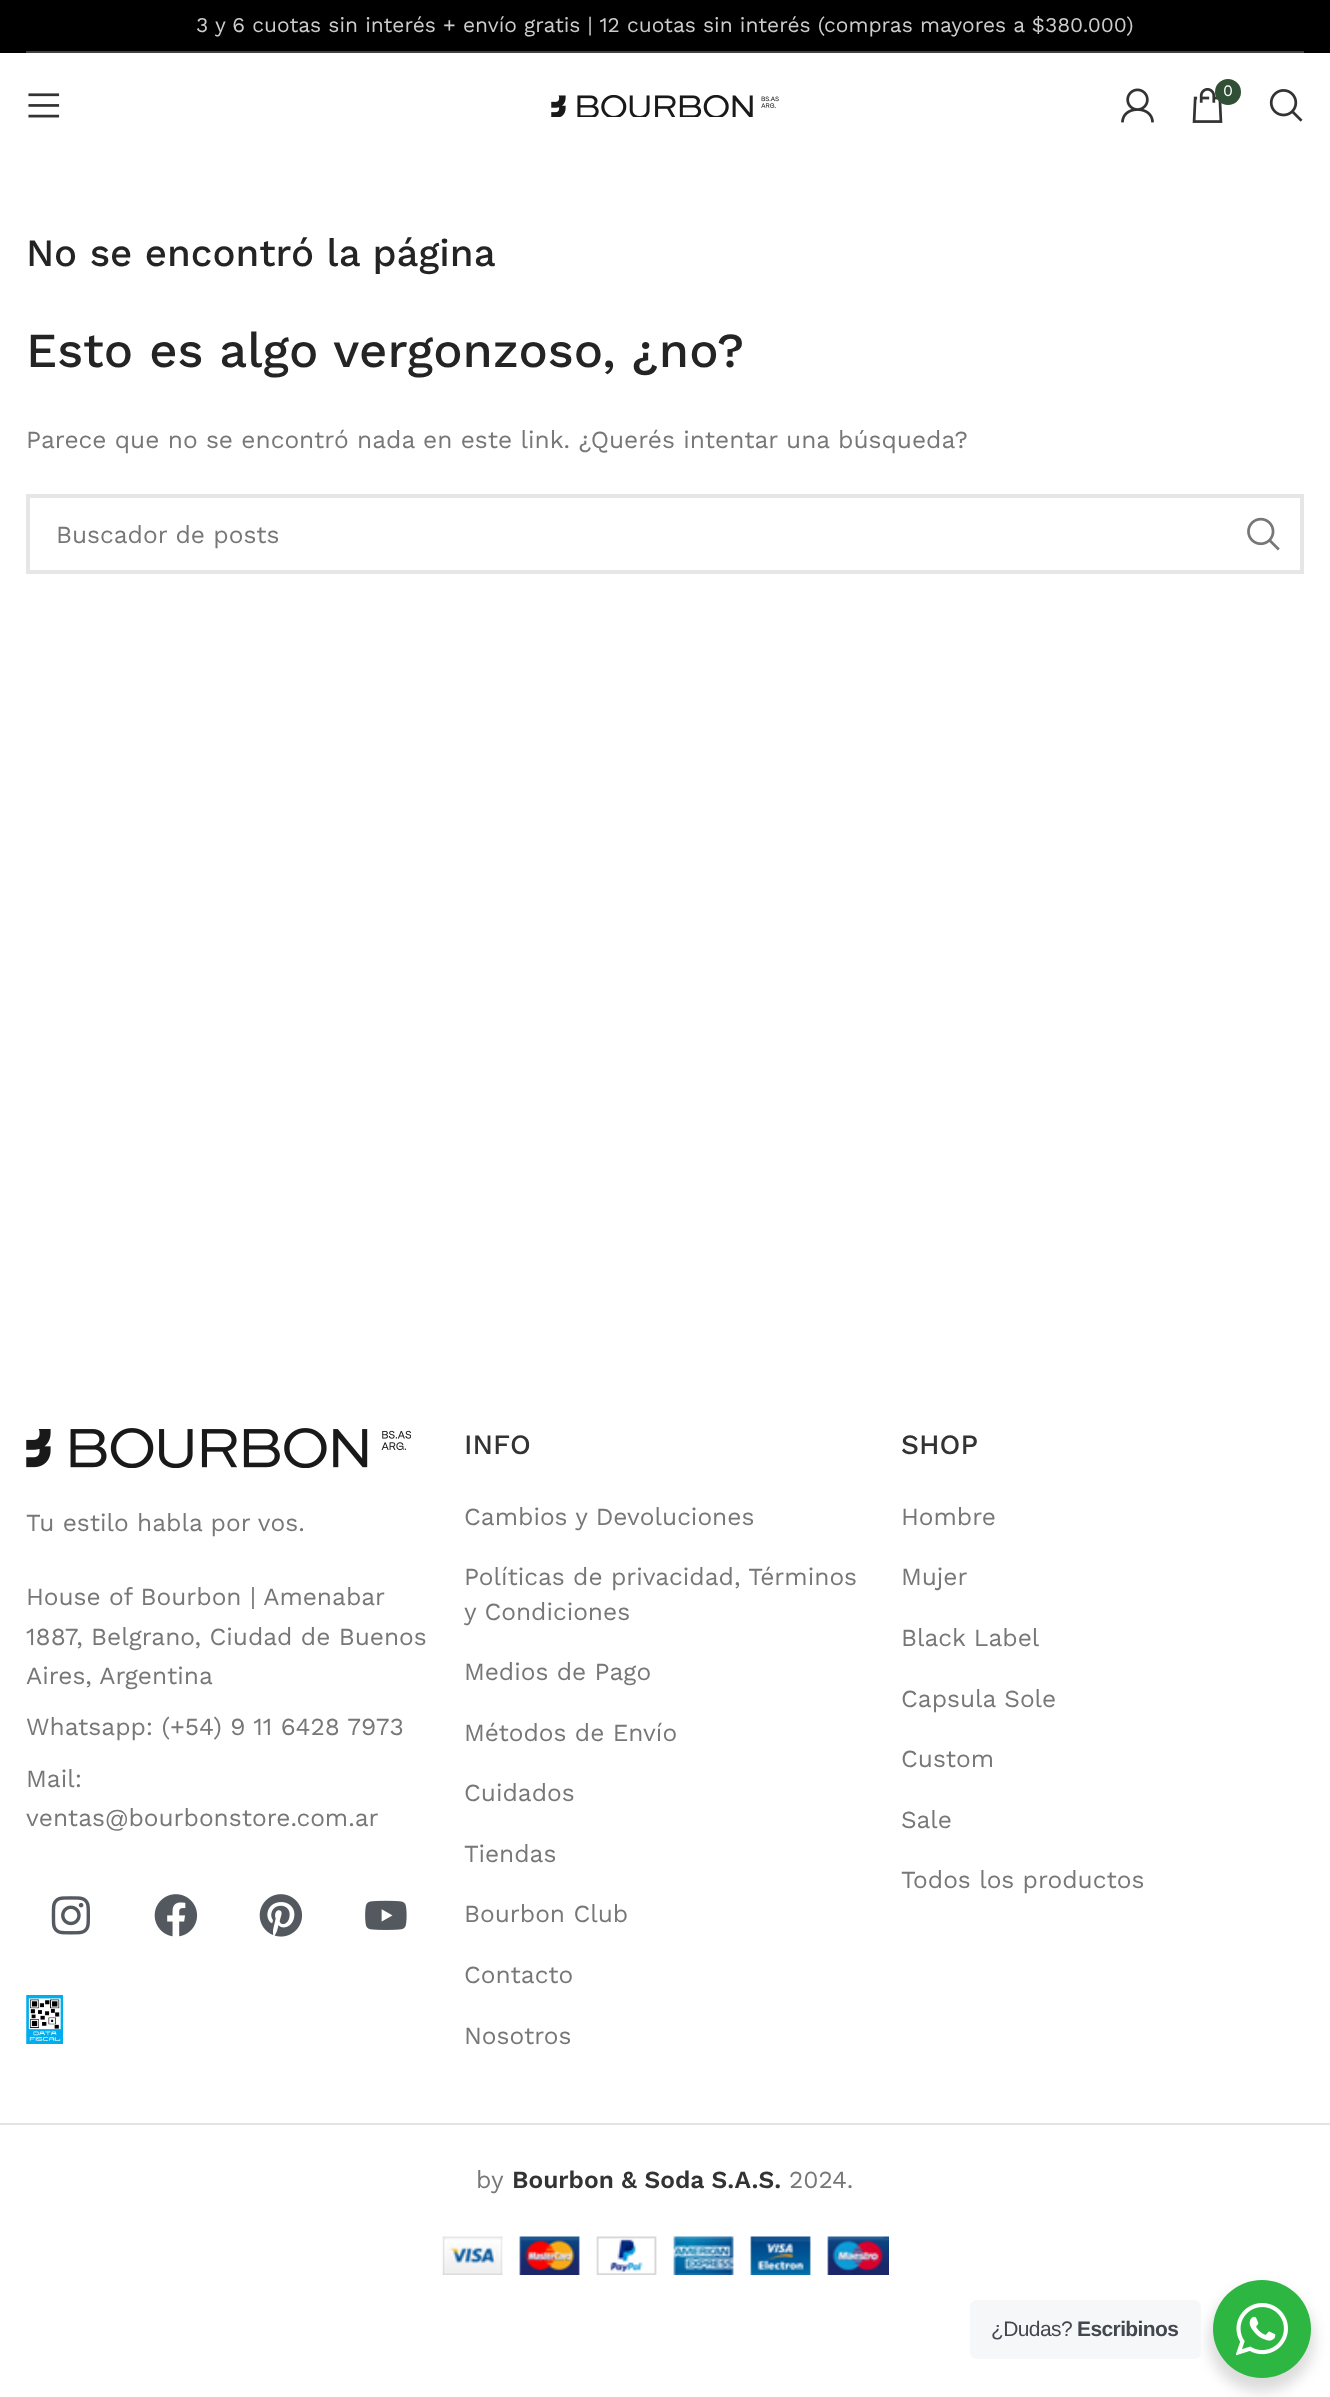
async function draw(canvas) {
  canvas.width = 1330;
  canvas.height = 2397;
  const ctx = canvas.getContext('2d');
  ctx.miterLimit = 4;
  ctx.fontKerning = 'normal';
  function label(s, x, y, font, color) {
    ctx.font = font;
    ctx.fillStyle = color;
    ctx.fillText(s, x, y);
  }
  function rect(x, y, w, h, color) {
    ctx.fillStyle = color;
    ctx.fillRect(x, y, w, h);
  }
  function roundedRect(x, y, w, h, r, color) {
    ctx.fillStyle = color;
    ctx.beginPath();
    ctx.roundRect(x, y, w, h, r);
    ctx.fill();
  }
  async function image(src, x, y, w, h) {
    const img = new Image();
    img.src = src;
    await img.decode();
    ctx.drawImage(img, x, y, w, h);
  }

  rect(0, 0, 1330, 2397, '#fff');
  rect(0, 0, 1330, 53, '#000');
  rect(26, 51, 1278, 2, '#404040');
  label('3 y 6 cuotas sin interés + envío gratis | 12 cuotas sin interés (compras mayores a $380.000)', 196, 32, '21px Work Sans', '#ccc');
  await image('assets/img1.png', 1121, 88, 33, 35);
  await image('assets/img2.png', 1192, 87, 31, 36);
  ctx.fillStyle = '#304f34';
  ctx.beginPath();
  ctx.arc(1228, 92, 13, 0, 2 * Math.PI);
  ctx.fill();
  label('0', 1223, 96, '16px Work Sans', '#fff');
  await image('assets/img3.png', 1269, 89, 34, 33);
  await image('assets/img4.png', 28, 93, 32, 25);
  await image('assets/img5.png', 551, 95, 228, 22);
  label('No se encontró la página', 26, 266, '500 38.5px Work Sans', '#242424');
  label('Esto es algo vergonzoso, ¿no?', 26, 367, '500 49px Work Sans', '#242424');
  label('Parece que no se encontró nada en este link. ¿Querés intentar una búsqueda?', 26, 448, '24.5px Work Sans', '#777');
  ctx.strokeStyle = '#e6e6e6';
  ctx.lineWidth = 4;
  ctx.strokeRect(28, 496, 1274, 76);
  label('Buscador de posts', 56, 543, '24.5px Work Sans', '#777');
  await image('assets/img6.png', 1247, 517, 33, 34);
  await image('assets/img7.png', 26, 1428, 385, 40);
  label('Tu estilo habla por vos.', 26, 1531, '24.5px Work Sans', '#777');
  label('House of Bourbon | Amenabar', 26, 1605, '24.5px Work Sans', '#777');
  label('1887, Belgrano, Ciudad de Buenos', 26, 1645, '24.5px Work Sans', '#777');
  label('Aires, Argentina', 26, 1684, '24.5px Work Sans', '#777');
  label('Whatsapp: (+54) 9 11 6428 7973', 26, 1735, '24.5px Work Sans', '#777');
  label('Mail:', 26, 1787, '24.5px Work Sans', '#777');
  label('ventas@bourbonstore.com.ar', 26, 1826, '24.5px Work Sans', '#777');
  await image('assets/img8.png', 51, 1896, 40, 39);
  await image('assets/img9.png', 154, 1894, 44, 43);
  await image('assets/img10.png', 259, 1894, 44, 43);
  await image('assets/img11.png', 365, 1900, 42, 30);
  await image('assets/img12.png', 26, 1995, 37, 49);
  label('INFO', 464, 1454, '500 28px Work Sans', '#333');
  label('Cambios y Devoluciones', 464, 1525, '24.5px Work Sans', '#777');
  label('Políticas de privacidad, Términos', 464, 1585, '24.5px Work Sans', '#777');
  label('y Condiciones', 464, 1620, '24.5px Work Sans', '#777');
  label('Medios de Pago', 464, 1680, '24.5px Work Sans', '#777');
  label('Métodos de Envío', 464, 1741, '24.5px Work Sans', '#777');
  label('Cuidados', 464, 1801, '24.5px Work Sans', '#777');
  label('Tiendas', 464, 1862, '24.5px Work Sans', '#777');
  label('Bourbon Club', 464, 1922, '24.5px Work Sans', '#777');
  label('Contacto', 464, 1983, '24.5px Work Sans', '#777');
  label('Nosotros', 464, 2044, '24.5px Work Sans', '#777');
  label('SHOP', 901, 1454, '500 28px Work Sans', '#333');
  label('Hombre', 901, 1525, '24.5px Work Sans', '#777');
  label('Mujer', 901, 1585, '24.5px Work Sans', '#777');
  label('Black Label', 901, 1646, '24.5px Work Sans', '#777');
  label('Capsula Sole', 901, 1707, '24.5px Work Sans', '#777');
  label('Custom', 901, 1767, '24.5px Work Sans', '#777');
  label('Sale', 901, 1828, '24.5px Work Sans', '#777');
  label('Todos los productos', 901, 1888, '24.5px Work Sans', '#777');
  rect(0, 2123, 1330, 2, '#e4e4e4');
  label('by', 476, 2188, '24.5px Work Sans', '#777');
  label('Bourbon & Soda S.A.S.', 512, 2188, '600 24.5px Work Sans', '#333');
  label('2024.', 789, 2188, '24.5px Work Sans', '#777');
  await image('assets/img13.png', 442, 2236, 447, 39);
  ctx.fillStyle = '#00000024';
  ctx.filter = 'blur(7px)';
  ctx.beginPath();
  ctx.roundRect(1209, 2287, 105, 105, 52.5);
  ctx.fill();
  ctx.filter = 'none';
  roundedRect(970, 2300, 231, 59, 7, '#f5f7f9');
  ctx.letterSpacing = '-0.6px';
  label('¿Dudas?', 991, 2336, '21px Liberation Sans', '#43474e');
  label('Escribinos', 1077, 2336, 'bold 21px Liberation Sans', '#43474e');
  ctx.fillStyle = '#2db742';
  ctx.beginPath();
  ctx.arc(1262, 2329, 49, 0, 2 * Math.PI);
  ctx.fill();
  await image('assets/img14.png', 1236, 2303, 52, 53);
}

draw(document.querySelector('canvas'));
